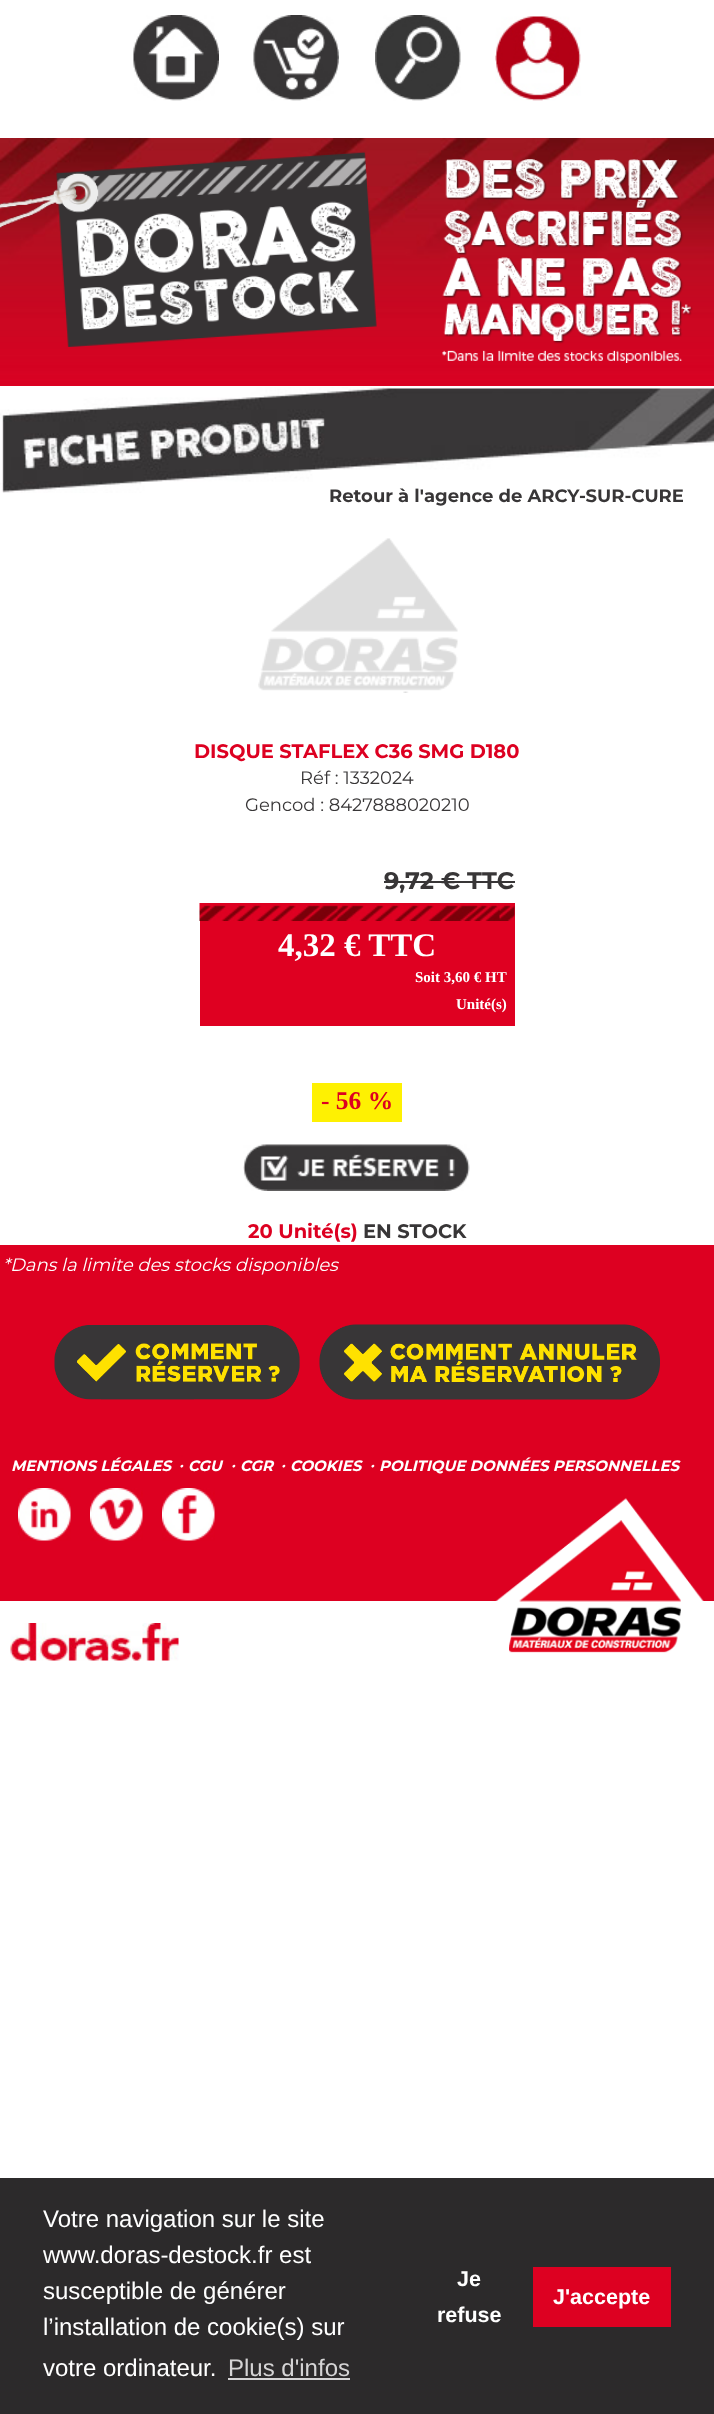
async function draw(canvas) {
  canvas.width = 714;
  canvas.height = 2414;
  const ctx = canvas.getContext('2d');
  ctx.miterLimit = 4;
  ctx.fontKerning = 'normal';
  function label(s, x, y, font, color) {
    ctx.font = font;
    ctx.fillStyle = color;
    ctx.fillText(s, x, y);
  }
  function rect(x, y, w, h, color) {
    ctx.fillStyle = color;
    ctx.fillRect(x, y, w, h);
  }
  async function image(src, x, y, w, h) {
    const img = new Image();
    img.src = src;
    await img.decode();
    ctx.drawImage(img, x, y, w, h);
  }

  rect(0, 0, 714, 2414, '#fff');
  await image('assets/img1.png', 133, 15, 86, 86);
  await image('assets/img2.png', 253, 15, 86, 86);
  await image('assets/img3.png', 375, 15, 86, 86);
  await image('assets/img4.png', 495, 16, 86, 85);
  rect(0, 385, 714, 1, '#dd0021');
  await image('assets/img5.png', 0, 138, 714, 247);
  await image('assets/img6.png', 0, 151, 377, 196);
  await image('assets/img7.png', 442, 159, 251, 204);
  rect(0, 1245, 714, 356, '#dd0021');
  await image('assets/img8.png', 0, 387, 714, 106);
  label('Retour à l\'agence de ARCY-SUR-CURE', 329, 502, 'bold 18px Montserrat', '#383637');
  await image('assets/img9.png', 258, 538, 200, 155);
  label('DISQUE STAFLEX C36 SMG D180', 194, 758, 'bold 19.5px Montserrat', '#dd0021');
  label('Réf : 1332024', 300, 784, '18px Montserrat', '#383637');
  label('Gencod : 8427888020210', 245, 811, '18px Montserrat', '#383637');
  label('9,72 € TTC', 384, 889, 'bold 24px Montserrat', '#383637');
  rect(384, 881, 131, 2, '#383637');
  rect(200, 903, 315, 123, '#df0021');
  await image('assets/img10.png', 199, 903, 316, 18);
  label('4,32 € TTC', 278, 956, 'bold 33px Liberation Serif', '#fff');
  label('Soit 3,60 € HT', 415, 982, 'bold 15px Liberation Serif', '#fff');
  label('Unité(s)', 456, 1009, 'bold 15px Liberation Serif', '#fff');
  rect(312, 1083, 90, 39, '#fef102');
  label('- 56 %', 321, 1109, 'bold 25.5px Liberation Serif', '#dd0021');
  await image('assets/img11.png', 243, 1144, 227, 47);
  label('20 Unité(s)', 248, 1238, 'bold 19.5px Montserrat', '#dd0021');
  label('EN STOCK', 363, 1238, 'bold 19.5px Montserrat', '#383637');
  label('*Dans la limite des stocks disponibles', 3, 1271, 'italic 18px Montserrat', '#fff');
  await image('assets/img12.png', 54, 1325, 246, 75);
  await image('assets/img13.png', 319, 1324, 341, 76);
  label('MENTIONS LÉGALES', 11, 1471, 'italic bold 15px Montserrat', '#fff');
  label('•', 178, 1471, 'italic 18px Montserrat', '#fff');
  label('CGU', 188, 1471, 'italic bold 15px Montserrat', '#fff');
  label('•', 230, 1471, 'italic 18px Montserrat', '#fff');
  label('CGR', 240, 1471, 'italic bold 15px Montserrat', '#fff');
  label('•', 280, 1471, 'italic 18px Montserrat', '#fff');
  label('COOKIES', 290, 1471, 'italic bold 15px Montserrat', '#fff');
  label('•', 369, 1471, 'italic 18px Montserrat', '#fff');
  label('POLITIQUE DONNÉES PERSONNELLES', 379, 1471, 'italic bold 15px Montserrat', '#fff');
  await image('assets/img14.png', 18, 1488, 53, 53);
  await image('assets/img15.png', 90, 1488, 53, 53);
  await image('assets/img16.png', 162, 1488, 53, 53);
  await image('assets/img17.png', 10, 1623, 169, 38);
  await image('assets/img18.png', 495, 1498, 209, 155);
  rect(0, 2178, 714, 236, '#2c2a2b');
  label('Votre navigation sur le site', 43, 2227, '24px Liberation Sans', '#fff');
  label('www.doras-destock.fr est', 43, 2263, '24px Liberation Sans', '#fff');
  label('susceptible de générer', 43, 2299, '24px Liberation Sans', '#fff');
  label('l’installation de cookie(s) sur', 43, 2335, '24px Liberation Sans', '#fff');
  label('votre ordinateur.', 43, 2376, '24px Liberation Sans', '#fff');
  label('Plus d\'infos', 228, 2376, '24px Liberation Sans', '#d5d4d5');
  rect(228, 2378, 122, 2, '#d5d4d5');
  label('Je', 457, 2286, 'bold 21.5px Liberation Sans', '#fff');
  label('refuse', 437, 2322, 'bold 21.5px Liberation Sans', '#fff');
  rect(533, 2267, 138, 60, '#dd0021');
  label('J\'accepte', 553, 2304, 'bold 21.5px Liberation Sans', '#fff');
}

draw(document.querySelector('canvas'));
